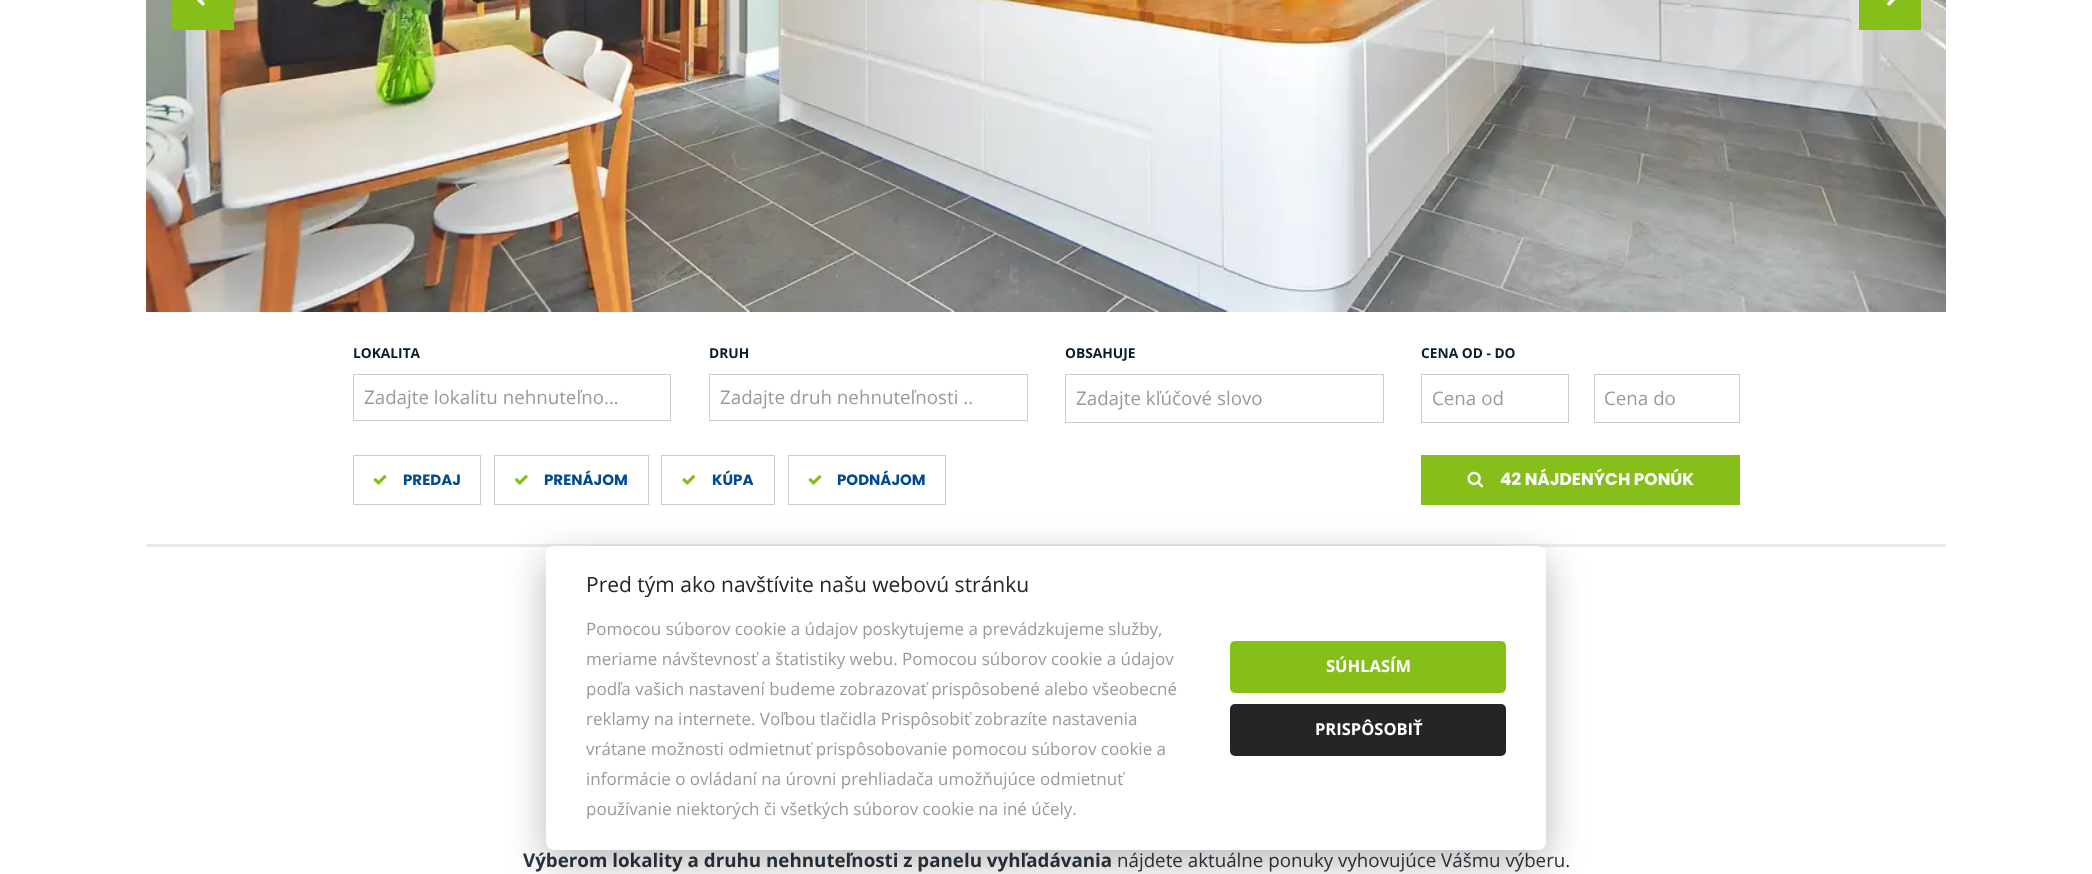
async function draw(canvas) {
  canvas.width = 2092;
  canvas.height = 874;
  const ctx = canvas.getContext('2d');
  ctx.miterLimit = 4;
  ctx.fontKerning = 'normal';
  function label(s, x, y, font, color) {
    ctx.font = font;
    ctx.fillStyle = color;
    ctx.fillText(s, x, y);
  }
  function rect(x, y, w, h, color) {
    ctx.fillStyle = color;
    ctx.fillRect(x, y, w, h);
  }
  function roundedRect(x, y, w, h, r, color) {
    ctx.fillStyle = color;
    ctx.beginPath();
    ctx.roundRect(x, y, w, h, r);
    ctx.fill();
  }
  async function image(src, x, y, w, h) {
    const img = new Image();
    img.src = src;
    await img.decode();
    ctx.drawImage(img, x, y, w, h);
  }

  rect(0, 0, 2092, 874, '#fff');
  await image('assets/img1.png', 146, 0, 1800, 312);
  rect(171, 0, 63, 30, '#86bf1a');
  await image('assets/img2.png', 196, 0, 13, 6);
  rect(1859, 0, 62, 30, '#86bf1a');
  await image('assets/img3.png', 1883, 0, 12, 6);
  rect(146, 544, 1800, 3, '#e8ecf1');
  label('LOKALITA', 353, 358, 'bold 13.75px Open Sans', '#071c31');
  ctx.strokeStyle = '#ccc';
  ctx.strokeRect(353.5, 374.5, 317, 46);
  label('Zadajte lokalitu nehnuteľno…', 364, 404, '18.75px Open Sans', '#9a9a9a');
  label('DRUH', 709, 358, 'bold 13.75px Open Sans', '#071c31');
  ctx.strokeRect(709.5, 374.5, 318, 46);
  label('Zadajte druh nehnuteľnosti ..', 720, 404, '18.75px Open Sans', '#9a9a9a');
  label('OBSAHUJE', 1065, 358, 'bold 13.75px Open Sans', '#071c31');
  ctx.strokeRect(1065.5, 374.5, 318, 48);
  label('Zadajte kľúčové slovo', 1076, 405, '18.75px Open Sans', '#9a9a9a');
  label('CENA OD - DO', 1421, 358, 'bold 13.75px Open Sans', '#071c31');
  ctx.strokeRect(1421.5, 374.5, 147, 48);
  label('Cena od', 1432, 405, '18.75px Open Sans', '#9a9a9a');
  ctx.strokeRect(1594.5, 374.5, 145, 48);
  label('Cena do', 1604, 405, '18.75px Open Sans', '#9a9a9a');
  ctx.strokeRect(353.5, 455.5, 127, 49);
  await image('assets/img4.png', 373, 475, 14, 10);
  label('PREDAJ', 403, 485, 'bold 15px Poppins', '#014a91');
  ctx.strokeRect(494.5, 455.5, 154, 49);
  await image('assets/img5.png', 514, 475, 14, 10);
  label('PRENÁJOM', 544, 485, 'bold 15px Poppins', '#014a91');
  ctx.strokeRect(661.5, 455.5, 113, 49);
  await image('assets/img6.png', 682, 475, 14, 10);
  label('KÚPA', 712, 485, 'bold 15px Poppins', '#014a91');
  ctx.strokeRect(788.5, 455.5, 157, 49);
  await image('assets/img4.png', 808, 475, 14, 10);
  label('PODNÁJOM', 837, 485, 'bold 15px Poppins', '#014a91');
  rect(1421, 455, 319, 50, '#86bf1a');
  await image('assets/img7.png', 1467, 471, 17, 17);
  label('42 NÁJDENÝCH PONÚK', 1500, 485, 'bold 16.9px Poppins', '#fff');
  label('Výberom lokality a druhu nehnuteľnosti z panelu vyhľadávania', 523, 867, 'bold 18.75px Open Sans', '#2a3540');
  label('nájdete aktuálne ponuky vyhovujúce Vášmu výberu.', 1117, 867, '18.75px Open Sans', '#2a3540');
  ctx.fillStyle = '#02020347';
  ctx.filter = 'blur(19px)';
  ctx.beginPath();
  ctx.roundRect(546, 559, 1000, 304, 8);
  ctx.fill();
  ctx.filter = 'none';
  roundedRect(546, 546, 1000, 304, 8, '#fff');
  label('Pred tým ako navštívite našu webovú stránku', 586, 592, '21px Open Sans', '#252525');
  label('Pomocou súborov cookie a údajov poskytujeme a prevádzkujeme služby,', 586, 635, '17px Open Sans', '#9a9a9a');
  label('meriame návštevnosť a štatistiky webu. Pomocou súborov cookie a údajov', 586, 665, '17px Open Sans', '#9a9a9a');
  label('podľa vašich nastavení budeme zobrazovať prispôsobené alebo všeobecné', 586, 695, '17px Open Sans', '#9a9a9a');
  label('reklamy na internete. Voľbou tlačidla Prispôsobiť zobrazíte nastavenia', 586, 725, '17px Open Sans', '#9a9a9a');
  label('vrátane možnosti odmietnuť prispôsobovanie pomocou súborov cookie a', 586, 755, '17px Open Sans', '#9a9a9a');
  label('informácie o ovládaní na úrovni prehliadača umožňujúce odmietnuť', 586, 785, '17px Open Sans', '#9a9a9a');
  label('používanie niektorých či všetkých súborov cookie na iné účely.', 586, 815, '17px Open Sans', '#9a9a9a');
  roundedRect(1230, 641, 276, 52, 5, '#86bf1a');
  label('SÚHLASÍM', 1326, 672, 'bold 16.5px Open Sans', '#fff');
  roundedRect(1230, 704, 276, 52, 5, '#252525');
  label('PRISPÔSOBIŤ', 1315, 735, 'bold 16.5px Open Sans', '#fff');
}

draw(document.querySelector('canvas'));
